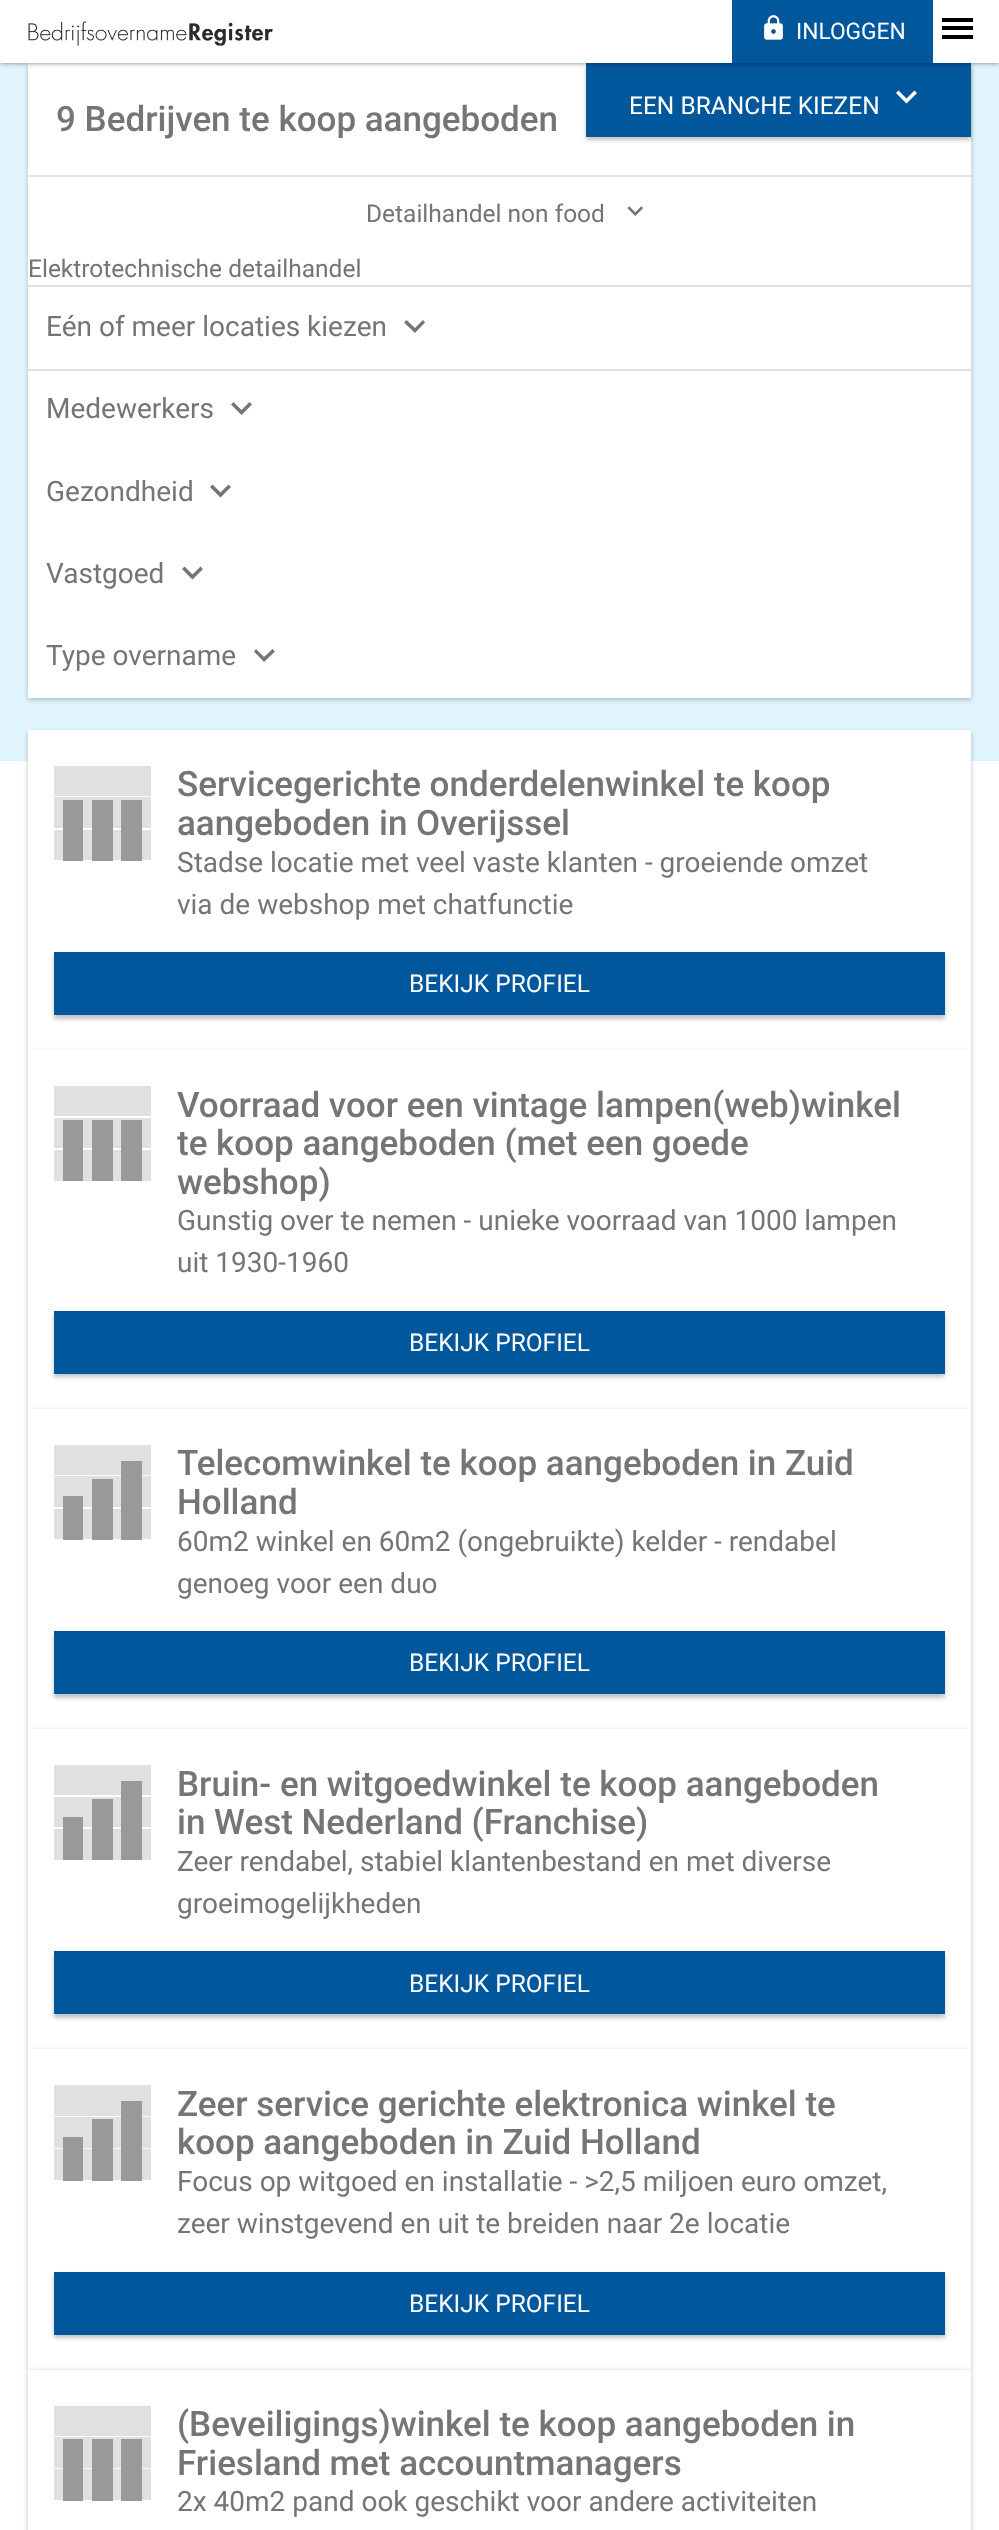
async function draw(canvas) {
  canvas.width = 999;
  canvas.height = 2530;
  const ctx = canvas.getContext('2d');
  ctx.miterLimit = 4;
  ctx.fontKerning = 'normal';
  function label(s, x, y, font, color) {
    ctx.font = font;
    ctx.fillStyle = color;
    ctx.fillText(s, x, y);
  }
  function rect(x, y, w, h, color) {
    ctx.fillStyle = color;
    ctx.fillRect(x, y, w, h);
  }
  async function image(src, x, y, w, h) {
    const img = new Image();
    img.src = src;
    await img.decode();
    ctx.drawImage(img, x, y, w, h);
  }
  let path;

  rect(0, 0, 999, 2530, '#fff');
  rect(0, 63, 999, 698, '#e1f5fe');
  ctx.fillStyle = '#0000003d';
  ctx.filter = 'blur(2.5px)';
  ctx.beginPath();
  ctx.rect(28, 65, 943, 635);
  ctx.fill();
  ctx.filter = 'none';
  rect(28, 63, 943, 635, '#fff');
  ctx.fillStyle = '#0000003d';
  ctx.filter = 'blur(2px)';
  ctx.beginPath();
  ctx.rect(586, 67, 385, 73);
  ctx.fill();
  ctx.filter = 'none';
  rect(586, 63, 385, 74, '#01579b');
  ctx.fillStyle = '#00000080';
  ctx.filter = 'blur(2.5px)';
  ctx.beginPath();
  ctx.rect(0, 0, 999, 63);
  ctx.fill();
  ctx.filter = 'none';
  rect(0, 0, 999, 63, '#fff');
  await image('assets/img1.png', 28, 21, 245, 25);
  rect(732, 0, 201, 63, '#01579b');
  await image('assets/img2.png', 764, 15, 19, 25);
  label('INLOGGEN', 796, 39, '22.75px Roboto', '#fff');
  rect(942, 18, 31, 4, '#000');
  rect(942, 26, 31, 4, '#000');
  rect(942, 35, 31, 4, '#000');
  label('9 Bedrijven te koop aangeboden', 56, 131, '500 35px Roboto', '#757575');
  label('EEN BRANCHE KIEZEN', 629, 114, '24.5px Roboto', '#fff');
  path = new Path2D('M898.5 90.5L906.5 98.5L914.5 90.5L917 93L906.5 103.5L896 93Z');
  ctx.fill(path);
  rect(28, 175, 943, 2, '#e0e0e0');
  rect(28, 285, 943, 2, '#e0e0e0');
  label('Detailhandel non food', 366, 222, '24.5px Roboto', '#757575');
  await image('assets/img3.png', 627, 206, 16, 10);
  label('Elektrotechnische detailhandel', 28, 277, '24.5px Roboto', '#757575');
  rect(28, 369, 943, 2, '#e0e0e0');
  label('Eén of meer locaties kiezen', 46, 336, '28px Roboto', '#757575');
  path = new Path2D('M406.5 320L415 328L423 320L425 322.5L415 333L404 322.5Z');
  ctx.fill(path);
  label('Medewerkers', 46, 418, '28px Roboto', '#757575');
  path = new Path2D('M233.5 402L241.5 410L249.5 402L252 404.5L241.5 415L231 404.5Z');
  ctx.fill(path);
  label('Gezondheid', 46, 501, '28px Roboto', '#757575');
  path = new Path2D('M212.5 484.5L220.5 492.5L228.5 484.5L231 487L220.5 497.5L210 487Z');
  ctx.fill(path);
  label('Vastgoed', 46, 583, '28px Roboto', '#757575');
  path = new Path2D('M184.5 566.5L192.5 574.5L200.5 566.5L203 569L192.5 579.5L182 569Z');
  ctx.fill(path);
  label('Type overname', 46, 665, '28px Roboto', '#757575');
  path = new Path2D('M256 649L264 657L272.5 649L275 651.5L264 662L254 651.5Z');
  ctx.fill(path);
  ctx.fillStyle = '#00000040';
  ctx.filter = 'blur(2.5px)';
  ctx.beginPath();
  ctx.rect(28, 732, 943, 320);
  ctx.fill();
  ctx.filter = 'none';
  rect(28, 730, 943, 320, '#fff');
  rect(54, 830, 97, 30, '#e0e0e0');
  rect(54, 797, 97, 31, '#e0e0e0');
  rect(54, 766, 97, 30, '#e0e0e0');
  rect(63, 800, 20, 61, '#999');
  rect(92, 800, 21, 61, '#999');
  rect(121, 800, 21, 61, '#999');
  label('Servicegerichte onderdelenwinkel te koop', 177, 796, '500 35px Roboto', '#757575');
  label('aangeboden in Overijssel', 177, 835, '500 35px Roboto', '#757575');
  label('Stadse locatie met veel vaste klanten - groeiende omzet', 177, 872, '28px Roboto', '#757575');
  label('via de webshop met chatfunctie', 177, 914, '28px Roboto', '#757575');
  ctx.fillStyle = '#0000003d';
  ctx.filter = 'blur(2px)';
  ctx.beginPath();
  ctx.rect(54, 956, 891, 63);
  ctx.fill();
  ctx.filter = 'none';
  rect(54, 952, 891, 63, '#01579b');
  label('BEKIJK PROFIEL', 409, 992, '24.5px Roboto', '#fff');
  ctx.fillStyle = '#00000040';
  ctx.filter = 'blur(2.5px)';
  ctx.beginPath();
  ctx.rect(28, 1052, 943, 359);
  ctx.fill();
  ctx.filter = 'none';
  rect(28, 1050, 943, 359, '#fff');
  rect(54, 1150, 97, 31, '#e0e0e0');
  rect(54, 1118, 97, 30, '#e0e0e0');
  rect(54, 1086, 97, 30, '#e0e0e0');
  rect(63, 1120, 20, 61, '#999');
  rect(92, 1120, 21, 61, '#999');
  rect(121, 1120, 21, 61, '#999');
  label('Voorraad voor een vintage lampen(web)winkel', 177, 1117, '500 35px Roboto', '#757575');
  label('te koop aangeboden (met een goede', 177, 1155, '500 35px Roboto', '#757575');
  label('webshop)', 177, 1194, '500 35px Roboto', '#757575');
  label('Gunstig over te nemen - unieke voorraad van 1000 lampen', 177, 1230, '28px Roboto', '#757575');
  label('uit 1930-1960', 177, 1272, '28px Roboto', '#757575');
  ctx.fillStyle = '#0000003d';
  ctx.filter = 'blur(2px)';
  ctx.beginPath();
  ctx.rect(54, 1314, 891, 63);
  ctx.fill();
  ctx.filter = 'none';
  rect(54, 1311, 891, 63, '#01579b');
  label('BEKIJK PROFIEL', 409, 1351, '24.5px Roboto', '#fff');
  ctx.fillStyle = '#00000040';
  ctx.filter = 'blur(2.5px)';
  ctx.beginPath();
  ctx.rect(28, 1411, 943, 320);
  ctx.fill();
  ctx.filter = 'none';
  rect(28, 1409, 943, 320, '#fff');
  rect(54, 1509, 97, 30, '#e0e0e0');
  rect(54, 1476, 97, 31, '#e0e0e0');
  rect(54, 1445, 97, 30, '#e0e0e0');
  rect(63, 1496, 20, 44, '#999');
  rect(92, 1479, 21, 61, '#999');
  rect(121, 1461, 21, 79, '#999');
  label('Telecomwinkel te koop aangeboden in Zuid', 177, 1475, '500 35px Roboto', '#757575');
  label('Holland', 177, 1514, '500 35px Roboto', '#757575');
  label('60m2 winkel en 60m2 (ongebruikte) kelder - rendabel', 177, 1551, '28px Roboto', '#757575');
  label('genoeg voor een duo', 177, 1593, '28px Roboto', '#757575');
  ctx.fillStyle = '#0000003d';
  ctx.filter = 'blur(2px)';
  ctx.beginPath();
  ctx.rect(54, 1635, 891, 63);
  ctx.fill();
  ctx.filter = 'none';
  rect(54, 1631, 891, 63, '#01579b');
  label('BEKIJK PROFIEL', 409, 1671, '24.5px Roboto', '#fff');
  ctx.fillStyle = '#00000040';
  ctx.filter = 'blur(2.5px)';
  ctx.beginPath();
  ctx.rect(28, 1731, 943, 320);
  ctx.fill();
  ctx.filter = 'none';
  rect(28, 1729, 943, 320, '#fff');
  rect(54, 1829, 97, 31, '#e0e0e0');
  rect(54, 1797, 97, 30, '#e0e0e0');
  rect(54, 1765, 97, 30, '#e0e0e0');
  rect(63, 1817, 20, 43, '#999');
  rect(92, 1799, 21, 61, '#999');
  rect(121, 1781, 21, 79, '#999');
  label('Bruin- en witgoedwinkel te koop aangeboden', 177, 1796, '500 35px Roboto', '#757575');
  label('in West Nederland (Franchise)', 177, 1834, '500 35px Roboto', '#757575');
  label('Zeer rendabel, stabiel klantenbestand en met diverse', 177, 1871, '28px Roboto', '#757575');
  label('groeimogelijkheden', 177, 1913, '28px Roboto', '#757575');
  ctx.fillStyle = '#0000003d';
  ctx.filter = 'blur(2px)';
  ctx.beginPath();
  ctx.rect(54, 1955, 891, 63);
  ctx.fill();
  ctx.filter = 'none';
  rect(54, 1951, 891, 63, '#01579b');
  label('BEKIJK PROFIEL', 409, 1992, '24.5px Roboto', '#fff');
  ctx.fillStyle = '#00000040';
  ctx.filter = 'blur(2.5px)';
  ctx.beginPath();
  ctx.rect(28, 2051, 943, 320);
  ctx.fill();
  ctx.filter = 'none';
  rect(28, 2049, 943, 321, '#fff');
  rect(54, 2149, 97, 31, '#e0e0e0');
  rect(54, 2117, 97, 31, '#e0e0e0');
  rect(54, 2085, 97, 31, '#e0e0e0');
  rect(63, 2137, 20, 44, '#999');
  rect(92, 2119, 21, 62, '#999');
  rect(121, 2101, 21, 80, '#999');
  label('Zeer service gerichte elektronica winkel te', 177, 2116, '500 35px Roboto', '#757575');
  label('koop aangeboden in Zuid Holland', 177, 2154, '500 35px Roboto', '#757575');
  label('Focus op witgoed en installatie - >2,5 miljoen euro omzet,', 177, 2191, '28px Roboto', '#757575');
  label('zeer winstgevend en uit te breiden naar 2e locatie', 177, 2233, '28px Roboto', '#757575');
  ctx.fillStyle = '#0000003d';
  ctx.filter = 'blur(2px)';
  ctx.beginPath();
  ctx.rect(54, 2275, 891, 63);
  ctx.fill();
  ctx.filter = 'none';
  rect(54, 2272, 891, 63, '#01579b');
  label('BEKIJK PROFIEL', 409, 2312, '24.5px Roboto', '#fff');
  ctx.fillStyle = '#00000040';
  ctx.filter = 'blur(2.5px)';
  ctx.beginPath();
  ctx.rect(28, 2371, 943, 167);
  ctx.fill();
  ctx.filter = 'none';
  rect(28, 2370, 943, 160, '#fff');
  rect(54, 2469, 97, 31, '#e0e0e0');
  rect(54, 2437, 97, 31, '#e0e0e0');
  rect(54, 2406, 97, 30, '#e0e0e0');
  rect(54, 2405, 97, 1, '#fbfbfb');
  rect(63, 2439, 20, 62, '#999');
  rect(92, 2439, 21, 62, '#999');
  rect(121, 2439, 21, 62, '#999');
  label('(Beveiligings)winkel te koop aangeboden in', 177, 2436, '500 35px Roboto', '#757575');
  label('Friesland met accountmanagers', 177, 2475, '500 35px Roboto', '#757575');
  label('2x 40m2 pand ook geschikt voor andere activiteiten', 177, 2511, '28px Roboto', '#757575');
}

draw(document.querySelector('canvas'));
